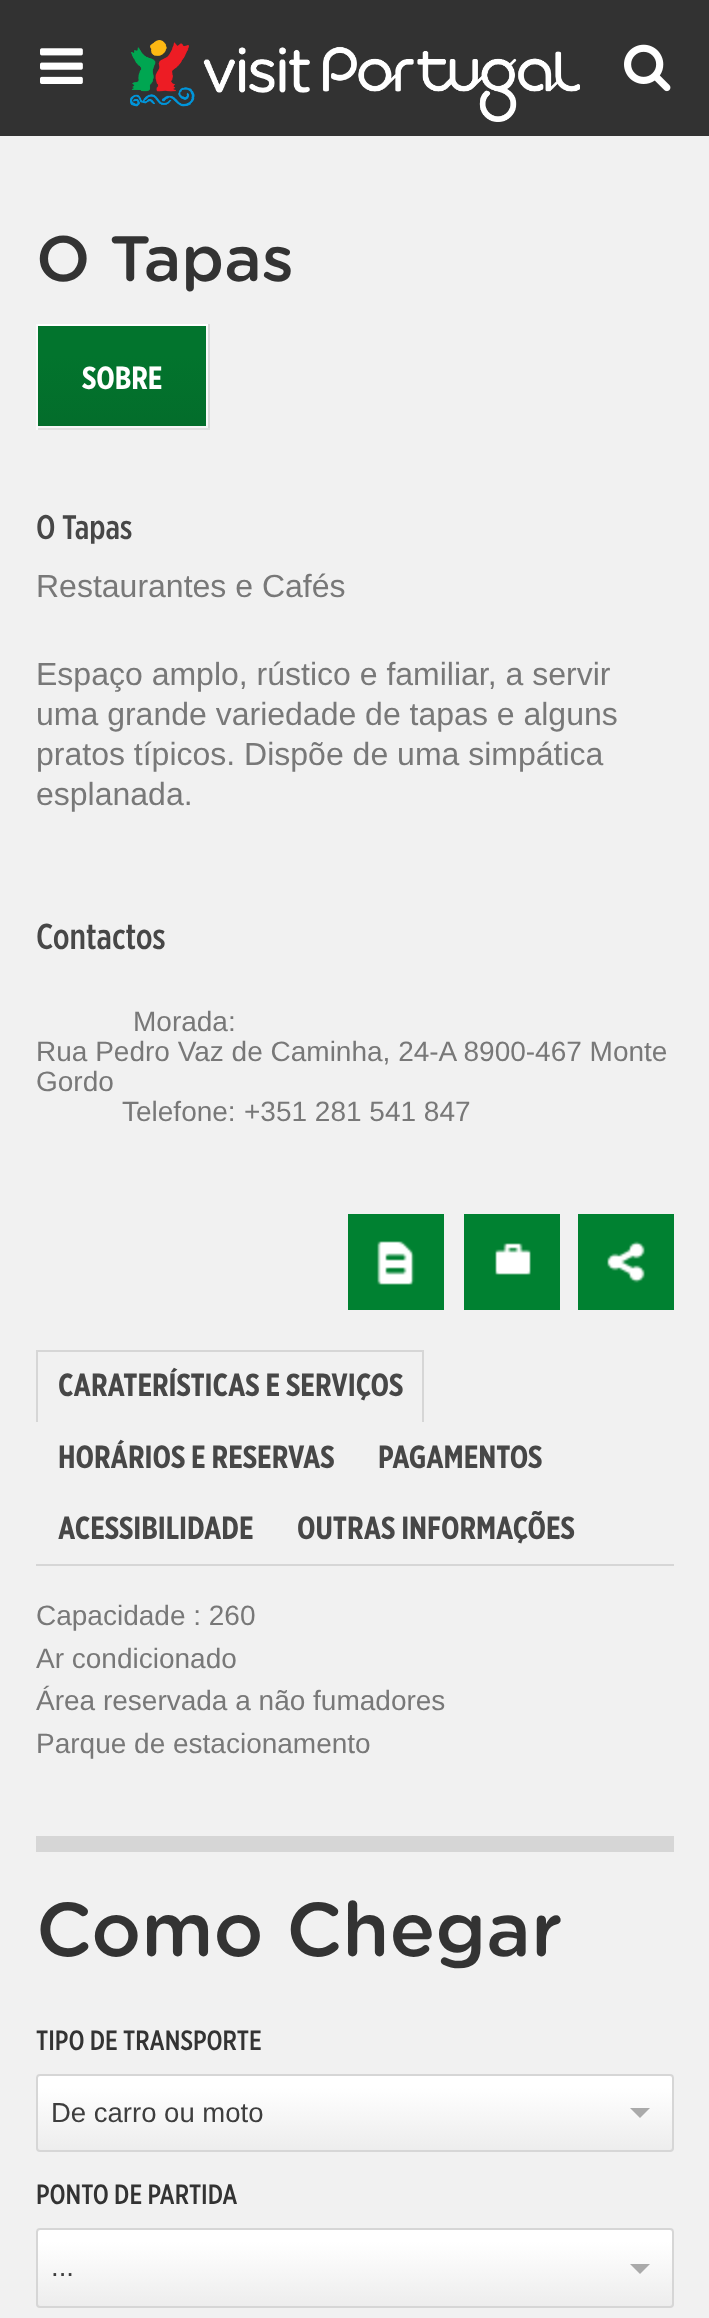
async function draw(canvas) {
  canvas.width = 709;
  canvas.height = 2318;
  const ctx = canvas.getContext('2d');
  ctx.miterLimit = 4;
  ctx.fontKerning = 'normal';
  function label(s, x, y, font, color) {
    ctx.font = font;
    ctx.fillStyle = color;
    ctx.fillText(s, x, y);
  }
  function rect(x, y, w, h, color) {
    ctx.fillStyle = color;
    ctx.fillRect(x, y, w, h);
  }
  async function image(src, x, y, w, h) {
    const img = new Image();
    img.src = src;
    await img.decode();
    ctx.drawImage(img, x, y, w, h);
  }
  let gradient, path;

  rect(0, 0, 709, 2318, '#f1f1f1');
  rect(0, 0, 709, 136, '#323232');
  await image('assets/img1.png', 40, 48, 43, 36);
  await image('assets/img2.png', 130, 40, 450, 82);
  await image('assets/img3.png', 624, 44, 47, 48);
  label('O Tapas', 36, 281, '500 64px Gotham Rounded', '#333');
  rect(36, 324, 174, 2, '#fff');
  rect(208, 324, 2, 106, '#d9d9d9');
  rect(36, 428, 174, 2, '#e0e0e0');
  rect(36, 324, 2, 106, '#fafafa');
  rect(206, 326, 2, 102, '#fafafa');
  rect(38, 426, 170, 2, '#f5f5f5');
  gradient = ctx.createLinearGradient(122, 326, 122, 426);
  gradient.addColorStop(0.3, '#02742d');
  gradient.addColorStop(1, '#036d2b');
  ctx.fillStyle = gradient;
  ctx.fillRect(38, 326, 168, 100);
  label('SOBRE', 82, 389, 'bold 32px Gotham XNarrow', '#fff');
  label('O Tapas', 36, 539, '500 34px Gotham XNarrow', '#474747');
  label('Restaurantes e Cafés', 36, 597, '32px Liberation Sans', '#787878');
  label('Espaço amplo, rústico e familiar, a servir', 36, 685, '32px Liberation Sans', '#787878');
  label('uma grande variedade de tapas e alguns', 36, 725, '32px Liberation Sans', '#787878');
  label('pratos típicos. Dispõe de uma simpática', 36, 765, '32px Liberation Sans', '#787878');
  label('esplanada.', 36, 805, '32px Liberation Sans', '#787878');
  label('Contactos', 36, 949, '500 36px Gotham XNarrow', '#474747');
  label('Morada:', 133, 1031, '28px Liberation Sans', '#787878');
  label('Rua Pedro Vaz de Caminha, 24-A 8900-467 Monte', 36, 1061, '28px Liberation Sans', '#787878');
  label('Gordo', 36, 1091, '28px Liberation Sans', '#787878');
  label('Telefone:', 122, 1121, '28px Liberation Sans', '#787878');
  label('+351 281 541 847', 244, 1121, '28px Liberation Sans', '#787878');
  rect(348, 1214, 96, 96, '#008131');
  await image('assets/img4.png', 377, 1241, 38, 44);
  rect(464, 1214, 96, 96, '#008131');
  await image('assets/img5.png', 495, 1243, 36, 32);
  rect(578, 1214, 96, 96, '#008131');
  await image('assets/img6.png', 607, 1241, 38, 42);
  rect(36, 1564, 638, 2, '#d6d6d6');
  rect(36, 1350, 388, 2, '#d6d6d6');
  rect(422, 1350, 2, 74, '#d6d6d6');
  rect(422, 1422, 2, 2, '#f1f1f1');
  rect(36, 1350, 2, 74, '#d6d6d6');
  label('CARATERÍSTICAS E SERVIÇOS', 58, 1396, 'bold 32px Gotham XNarrow', '#474747');
  rect(36, 1422, 2, 2, '#f1f1f1');
  label('HORÁRIOS E RESERVAS', 58, 1468, 'bold 32px Gotham XNarrow', '#474747');
  label('PAGAMENTOS', 378, 1468, 'bold 32px Gotham XNarrow', '#474747');
  label('ACESSIBILIDADE', 58, 1539, 'bold 32px Gotham XNarrow', '#474747');
  label('OUTRAS INFORMAÇÕES', 297, 1539, 'bold 32px Gotham XNarrow', '#474747');
  label('Capacidade : 260', 36, 1625, '28px Liberation Sans', '#787878');
  label('Ar condicionado', 36, 1668, '28px Liberation Sans', '#787878');
  label('Área reservada a não fumadores', 36, 1710, '28px Liberation Sans', '#787878');
  label('Parque de estacionamento', 36, 1753, '28px Liberation Sans', '#787878');
  rect(36, 1836, 638, 16, '#d6d6d6');
  label('Como Chegar', 36, 1956, '500 76px Gotham Rounded', '#333');
  label('TIPO DE TRANSPORTE', 36, 2050, '500 28px Gotham XNarrow', '#333');
  ctx.save();
  ctx.beginPath();
  ctx.roundRect(36, 2074, 638, 78, 4);
  ctx.clip();
  gradient = ctx.createLinearGradient(355, 2076, 355, 2150);
  gradient.addColorStop(0.15, '#fff');
  gradient.addColorStop(1, '#ededed');
  ctx.fillStyle = gradient;
  ctx.fillRect(36, 2076, 638, 74);
  ctx.restore();
  ctx.beginPath();
  ctx.roundRect(37, 2075, 636, 76, 3);
  ctx.strokeStyle = '#d6d6d6';
  ctx.lineWidth = 2;
  ctx.stroke();
  label('De carro ou moto', 51, 2122, '27.5px Liberation Sans', '#3e3e3e');
  ctx.fillStyle = '#aaa';
  path = new Path2D('M630 2108H650L640 2118Z');
  ctx.fill(path);
  label('PONTO DE PARTIDA', 36, 2204, '500 28px Gotham XNarrow', '#333');
  ctx.save();
  ctx.beginPath();
  ctx.roundRect(36, 2228, 638, 80, 4);
  ctx.clip();
  gradient = ctx.createLinearGradient(355, 2230, 355, 2306);
  gradient.addColorStop(0.15, '#fff');
  gradient.addColorStop(1, '#ededed');
  ctx.fillStyle = gradient;
  ctx.fillRect(36, 2230, 638, 76);
  ctx.restore();
  ctx.beginPath();
  ctx.roundRect(37, 2229, 636, 78, 3);
  ctx.stroke();
  ctx.fillStyle = '#aaa';
  path = new Path2D('M630 2264H650L640 2274Z');
  ctx.fill(path);
  label('...', 51, 2276, '27.5px Liberation Sans', '#3e3e3e');
}

draw(document.querySelector('canvas'));
